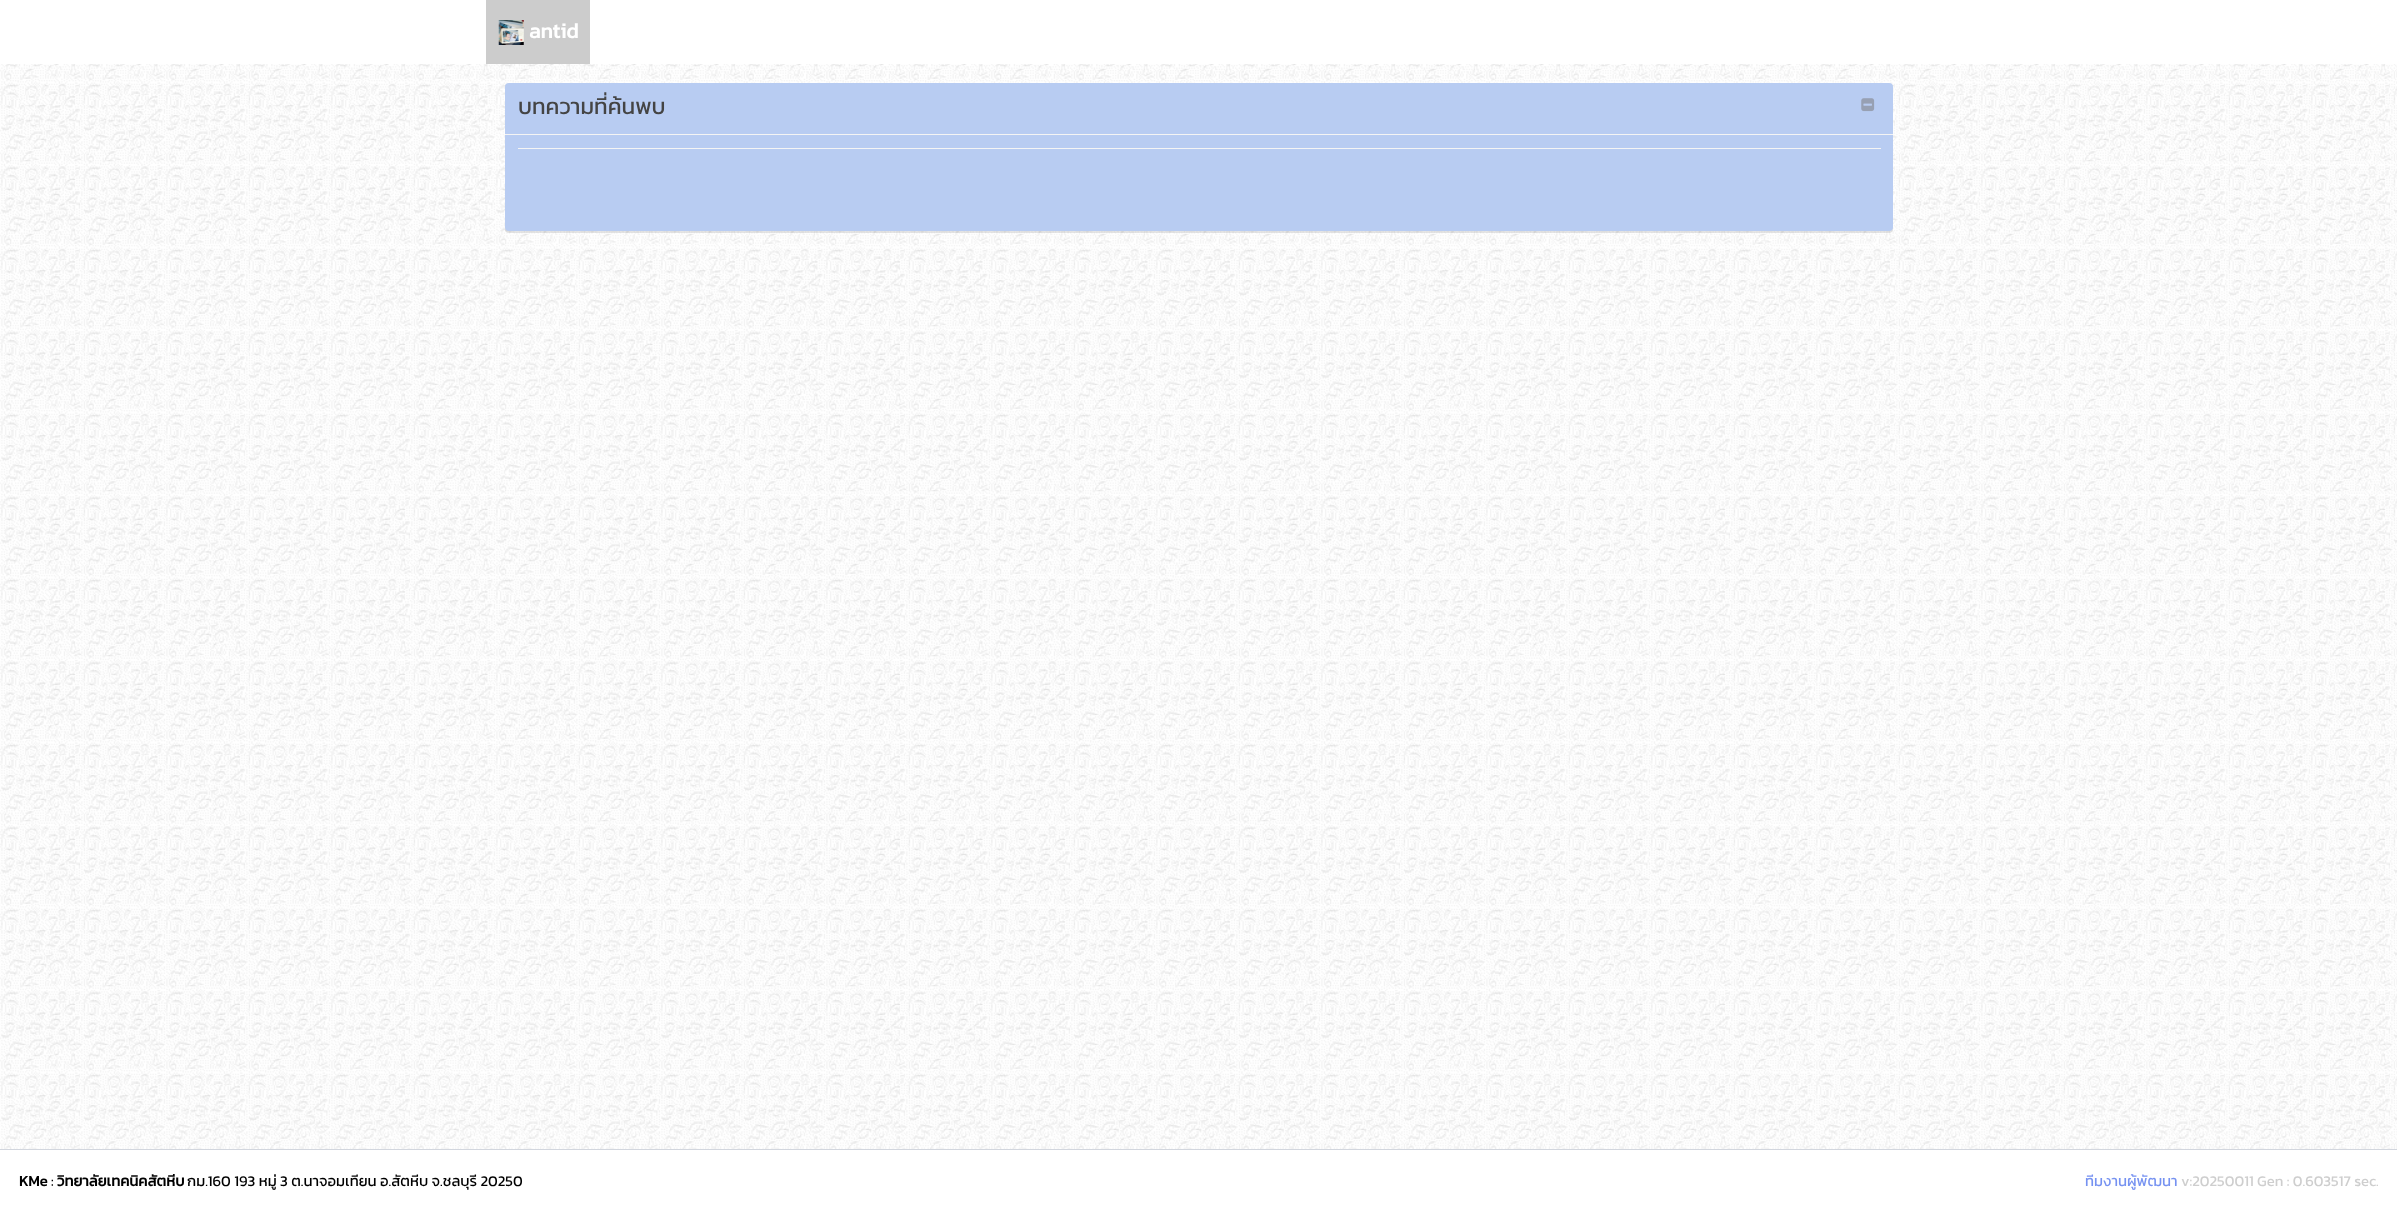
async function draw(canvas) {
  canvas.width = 2397;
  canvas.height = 1212;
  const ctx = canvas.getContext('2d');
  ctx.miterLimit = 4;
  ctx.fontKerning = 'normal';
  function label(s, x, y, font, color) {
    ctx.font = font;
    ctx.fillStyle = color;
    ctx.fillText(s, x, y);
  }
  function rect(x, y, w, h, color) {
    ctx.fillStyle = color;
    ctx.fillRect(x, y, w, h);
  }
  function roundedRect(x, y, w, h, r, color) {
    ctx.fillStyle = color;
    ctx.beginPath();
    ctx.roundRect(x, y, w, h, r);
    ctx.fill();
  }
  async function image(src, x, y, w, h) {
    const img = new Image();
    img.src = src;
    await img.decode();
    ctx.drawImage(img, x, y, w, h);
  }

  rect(0, 0, 2397, 1212, '#fff');
  rect(486, 0, 104, 64, '#ccc');
  await image('assets/img1.png', 498, 20, 26, 25);
  label('antid', 529, 38, 'bold 21px Kanit', '#fff');
  await image('assets/img2.png', 0, 64, 2397, 1085);
  ctx.fillStyle = '#0000001a';
  ctx.filter = 'blur(0.5px)';
  ctx.beginPath();
  ctx.roundRect(505, 84, 1388, 149, 4);
  ctx.fill();
  ctx.filter = 'none';
  roundedRect(505, 83, 1388, 148, 4, '#b8ccf2');
  rect(505, 134, 1388, 1, '#f4f4f4');
  label('บทความที่ค้นพบ', 518, 114, '22.5px Kanit', '#444');
  await image('assets/img3.png', 1861, 98, 14, 14);
  rect(518, 148, 1363, 1, '#f4f4f4');
  rect(0, 1149, 2397, 1, '#d2d6de');
  label('KMe', 19, 1186, 'bold 14.9px Kanit', '#000');
  label(':', 51, 1186, '14.9px Kanit', '#000');
  label('วิทยาลัยเทคนิคสัตหีบ', 57, 1186, 'bold 14.9px Kanit', '#000');
  label('กม.160 193 หมู่ 3 ต.นาจอมเทียน อ.สัตหีบ จ.ชลบุรี 20250', 187, 1186, '14.9px Kanit', '#000');
  label('ทีมงานผู้พัฒนา', 2085, 1186, '14.9px Kanit', '#7692f1');
  label('v:20250011 Gen : 0.603517 sec.', 2181, 1186, '14.9px Kanit', '#cecece');
}

draw(document.querySelector('canvas'));
